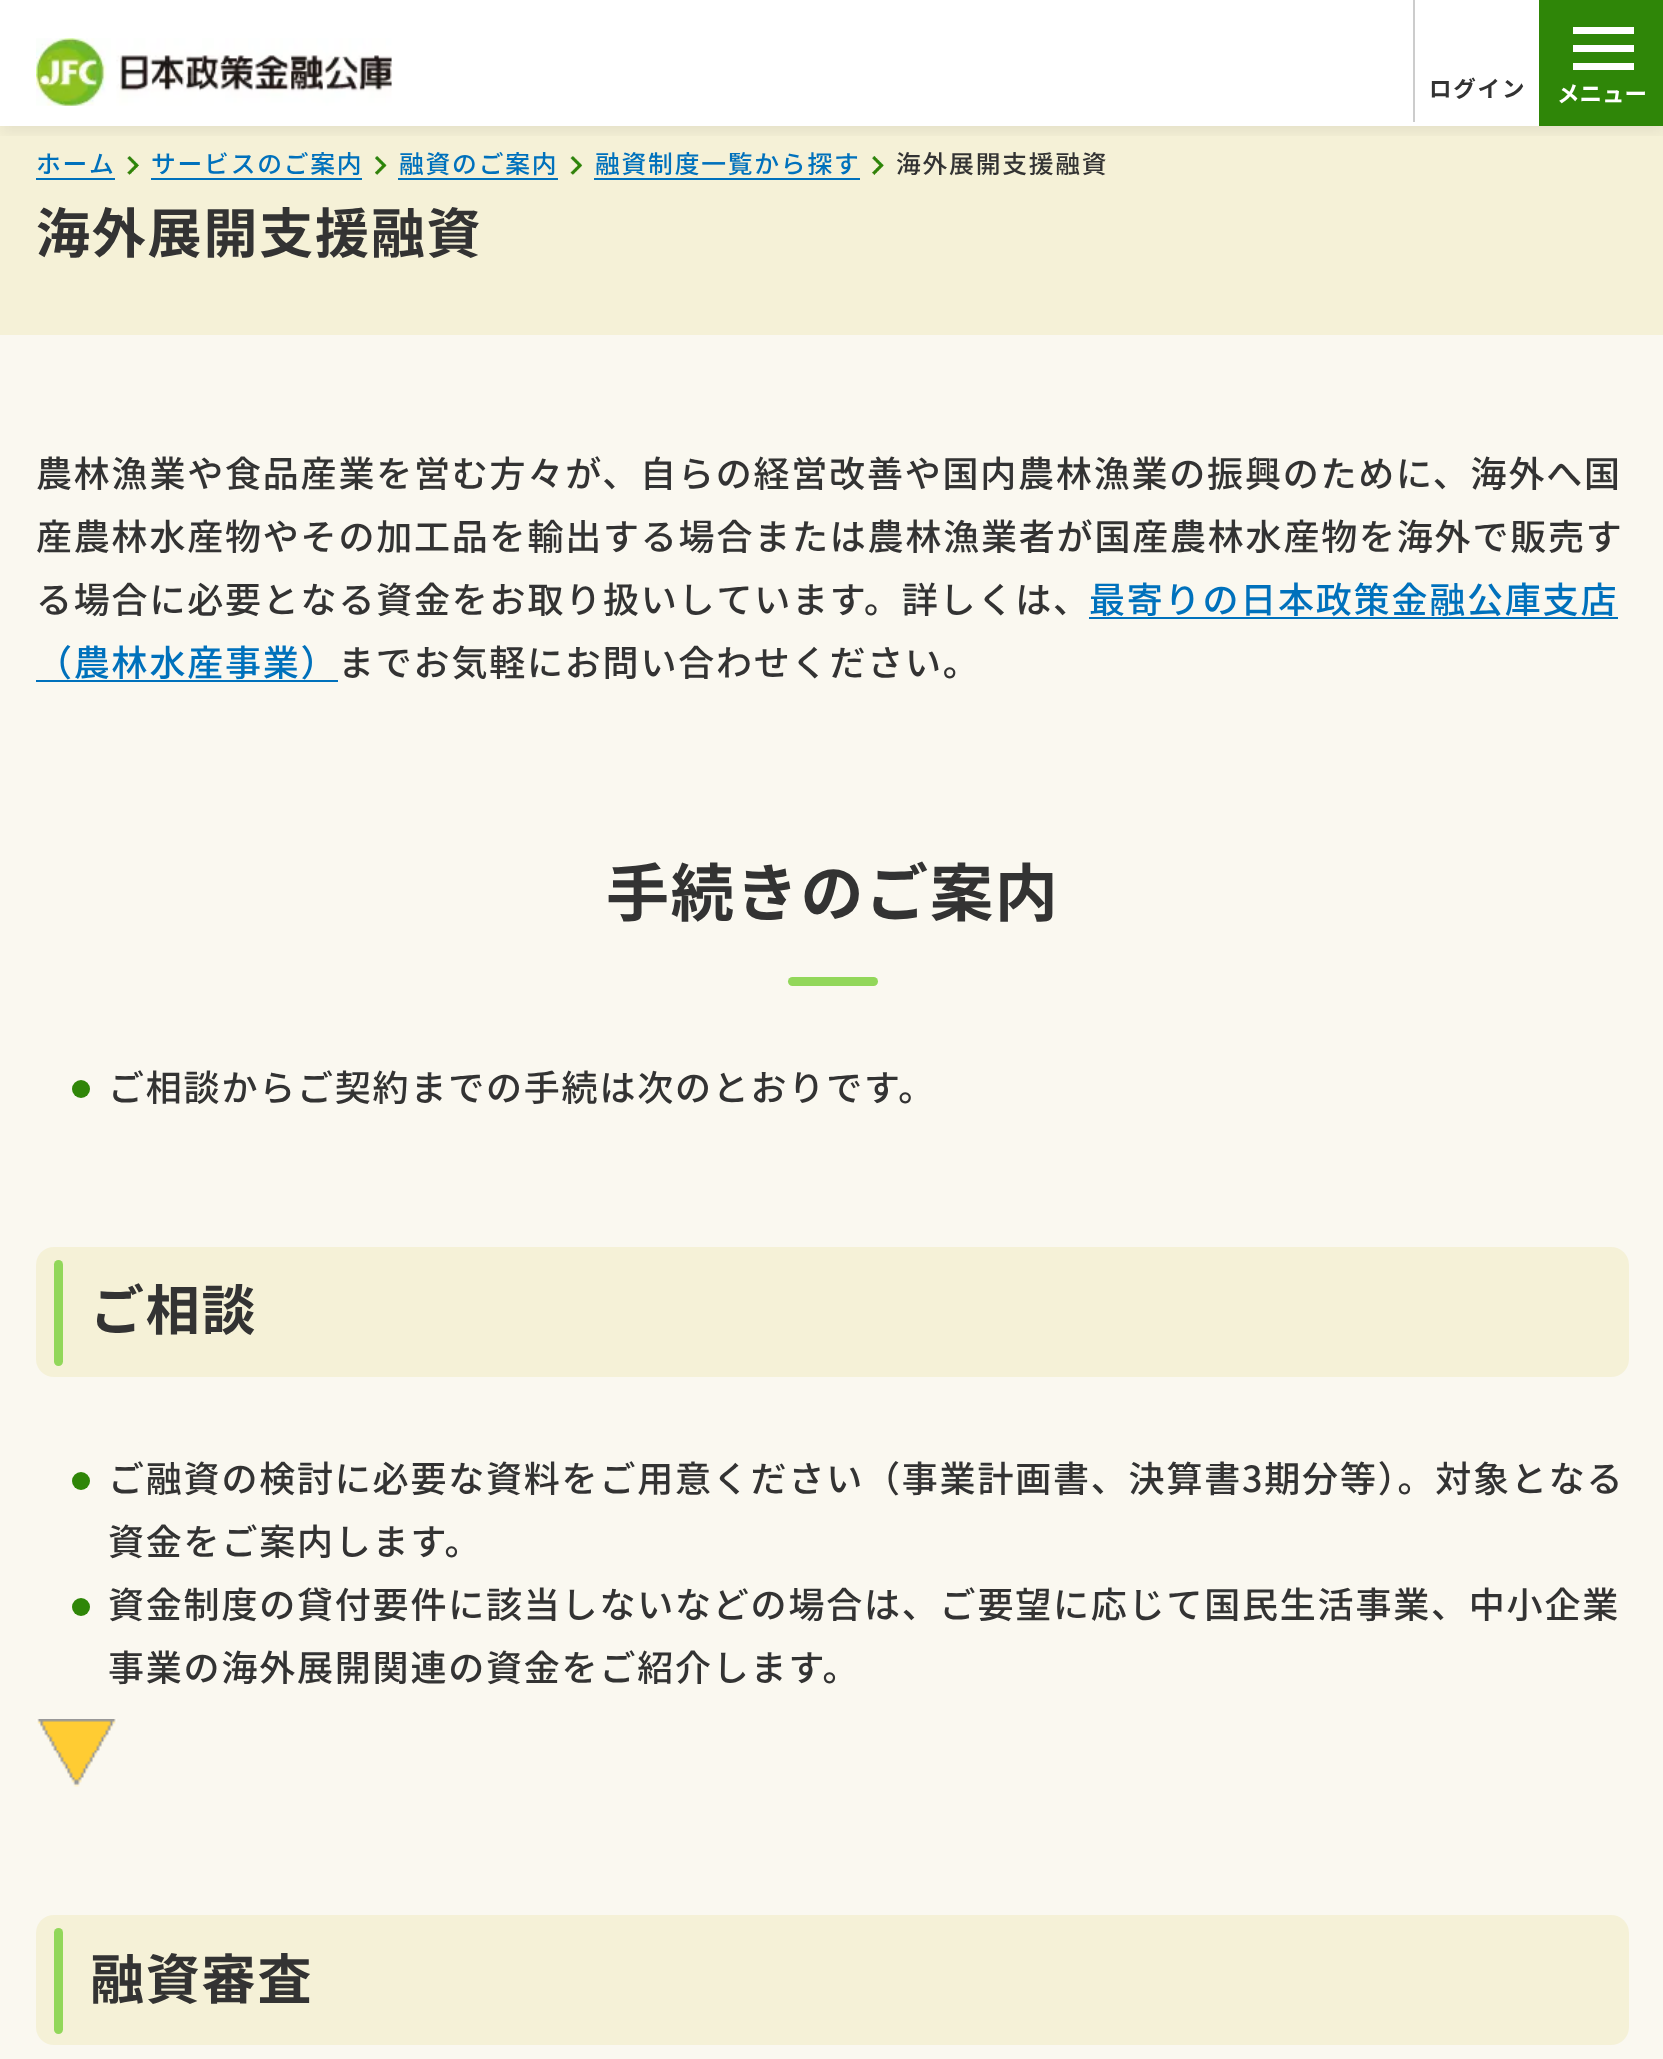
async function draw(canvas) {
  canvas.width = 1663;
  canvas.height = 2059;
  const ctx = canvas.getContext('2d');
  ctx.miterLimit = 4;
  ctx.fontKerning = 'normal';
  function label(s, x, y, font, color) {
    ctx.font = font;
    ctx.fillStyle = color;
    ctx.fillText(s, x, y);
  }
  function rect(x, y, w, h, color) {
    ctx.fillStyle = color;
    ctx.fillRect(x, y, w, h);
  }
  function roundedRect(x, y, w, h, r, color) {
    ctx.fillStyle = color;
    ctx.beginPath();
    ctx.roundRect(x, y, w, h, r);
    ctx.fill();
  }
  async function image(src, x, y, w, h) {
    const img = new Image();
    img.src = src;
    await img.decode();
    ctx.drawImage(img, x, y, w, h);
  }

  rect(0, 0, 1663, 2059, '#faf8f0');
  rect(0, 0, 1539, 126, '#fff');
  rect(0, 126, 1663, 209, '#f5f1d7');
  ctx.save();
  ctx.beginPath();
  ctx.rect(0, 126, 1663, 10);
  ctx.clip();
  ctx.fillStyle = '#0000000f';
  ctx.filter = 'blur(7px)';
  ctx.beginPath();
  ctx.rect(0, 7, 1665, 126);
  ctx.fill();
  ctx.filter = 'none';
  ctx.restore();
  await image('assets/img1.png', 36, 38, 356, 68);
  rect(1413, 0, 2, 122, '#ccc');
  ctx.letterSpacing = '1.8px';
  label('ログイン', 1429, 97, 'bold 22.5px Noto Sans JP', '#333');
  rect(1539, 0, 124, 126, '#2f8608');
  rect(1573, 45, 61, 7, '#fff');
  rect(1573, 27, 61, 7, '#fff');
  rect(1573, 63, 61, 7, '#fff');
  ctx.letterSpacing = '0px';
  label('メニュー', 1557, 102, 'bold 22.5px Noto Sans JP', '#fff');
  ctx.letterSpacing = '1.8px';
  label('ホーム', 36, 173, '500 24.75px Noto Sans JP', '#0071bc');
  rect(36, 178, 79, 2, '#0071bc');
  await image('assets/img2.png', 127, 156, 12, 19);
  label('サービスのご案内', 151, 173, '500 24.75px Noto Sans JP', '#0071bc');
  rect(151, 178, 211, 2, '#0071bc');
  await image('assets/img3.png', 375, 156, 12, 19);
  label('融資のご案内', 399, 173, '500 24.75px Noto Sans JP', '#0071bc');
  rect(398, 178, 160, 2, '#0071bc');
  await image('assets/img4.png', 570, 156, 13, 19);
  label('融資制度一覧から探す', 595, 173, '500 24.75px Noto Sans JP', '#0071bc');
  rect(594, 178, 266, 2, '#0071bc');
  await image('assets/img5.png', 872, 156, 12, 19);
  label('海外展開支援融資', 896, 173, '500 24.75px Noto Sans JP', '#333');
  label('海外展開支援融資', 36, 253, 'bold 54px Noto Sans JP', '#333');
  label('農林漁業や食品産業を営む方々が、自らの経営改善や国内農林漁業の振興のために、海外へ国', 36, 487, '500 36px Noto Sans JP', '#333');
  label('産農林水産物やその加工品を輸出する場合または農林漁業者が国産農林水産物を海外で販売す', 36, 550, '500 36px Noto Sans JP', '#333');
  label('る場合に必要となる資金をお取り扱いしています。詳しくは、', 36, 613, '500 36px Noto Sans JP', '#333');
  label('最寄りの日本政策金融公庫支店', 1089, 613, '500 36px Noto Sans JP', '#0071bc');
  rect(1089, 617, 529, 2, '#0071bc');
  label('（農林水産事業）', 36, 676, '500 36px Noto Sans JP', '#0071bc');
  rect(36, 680, 302, 2, '#0071bc');
  label('までお気軽にお問い合わせください。', 338, 676, '500 36px Noto Sans JP', '#333');
  label('手続きのご案内', 606, 916, 'bold 63px Noto Sans JP', '#333');
  roundedRect(788, 977, 90, 9, 4.5, '#92d75a');
  ctx.fillStyle = '#2f8608';
  ctx.beginPath();
  ctx.arc(81, 1089, 9, 0, 2 * Math.PI);
  ctx.fill();
  label('ご相談からご契約までの手続は次のとおりです。', 108, 1101, '500 36px Noto Sans JP', '#333');
  roundedRect(36, 1247, 1593, 130, 18, '#f5f1d7');
  roundedRect(54, 1260, 9, 106, 4.5, '#92d75a');
  label('ご相談', 90, 1330, 'bold 54px Noto Sans JP', '#333');
  ctx.fillStyle = '#2f8608';
  ctx.beginPath();
  ctx.arc(81, 1481, 9, 0, 2 * Math.PI);
  ctx.fill();
  label('ご融資の検討に必要な資料をご用意ください（事業計画書、決算書3期分等）。対象となる', 108, 1492, '500 36px Noto Sans JP', '#333');
  label('資金をご案内します。', 108, 1555, '500 36px Noto Sans JP', '#333');
  ctx.fillStyle = '#2f8608';
  ctx.beginPath();
  ctx.arc(81, 1607, 9, 0, 2 * Math.PI);
  ctx.fill();
  label('資金制度の貸付要件に該当しないなどの場合は、ご要望に応じて国民生活事業、中小企業', 108, 1618, '500 36px Noto Sans JP', '#333');
  label('事業の海外展開関連の資金をご紹介します。', 108, 1681, '500 36px Noto Sans JP', '#333');
  await image('assets/img6.png', 36, 1719, 81, 68);
  roundedRect(36, 1915, 1593, 130, 18, '#f5f1d7');
  roundedRect(54, 1928, 9, 106, 4.5, '#92d75a');
  label('融資審査', 90, 1999, 'bold 54px Noto Sans JP', '#333');
}

draw(document.querySelector('canvas'));
